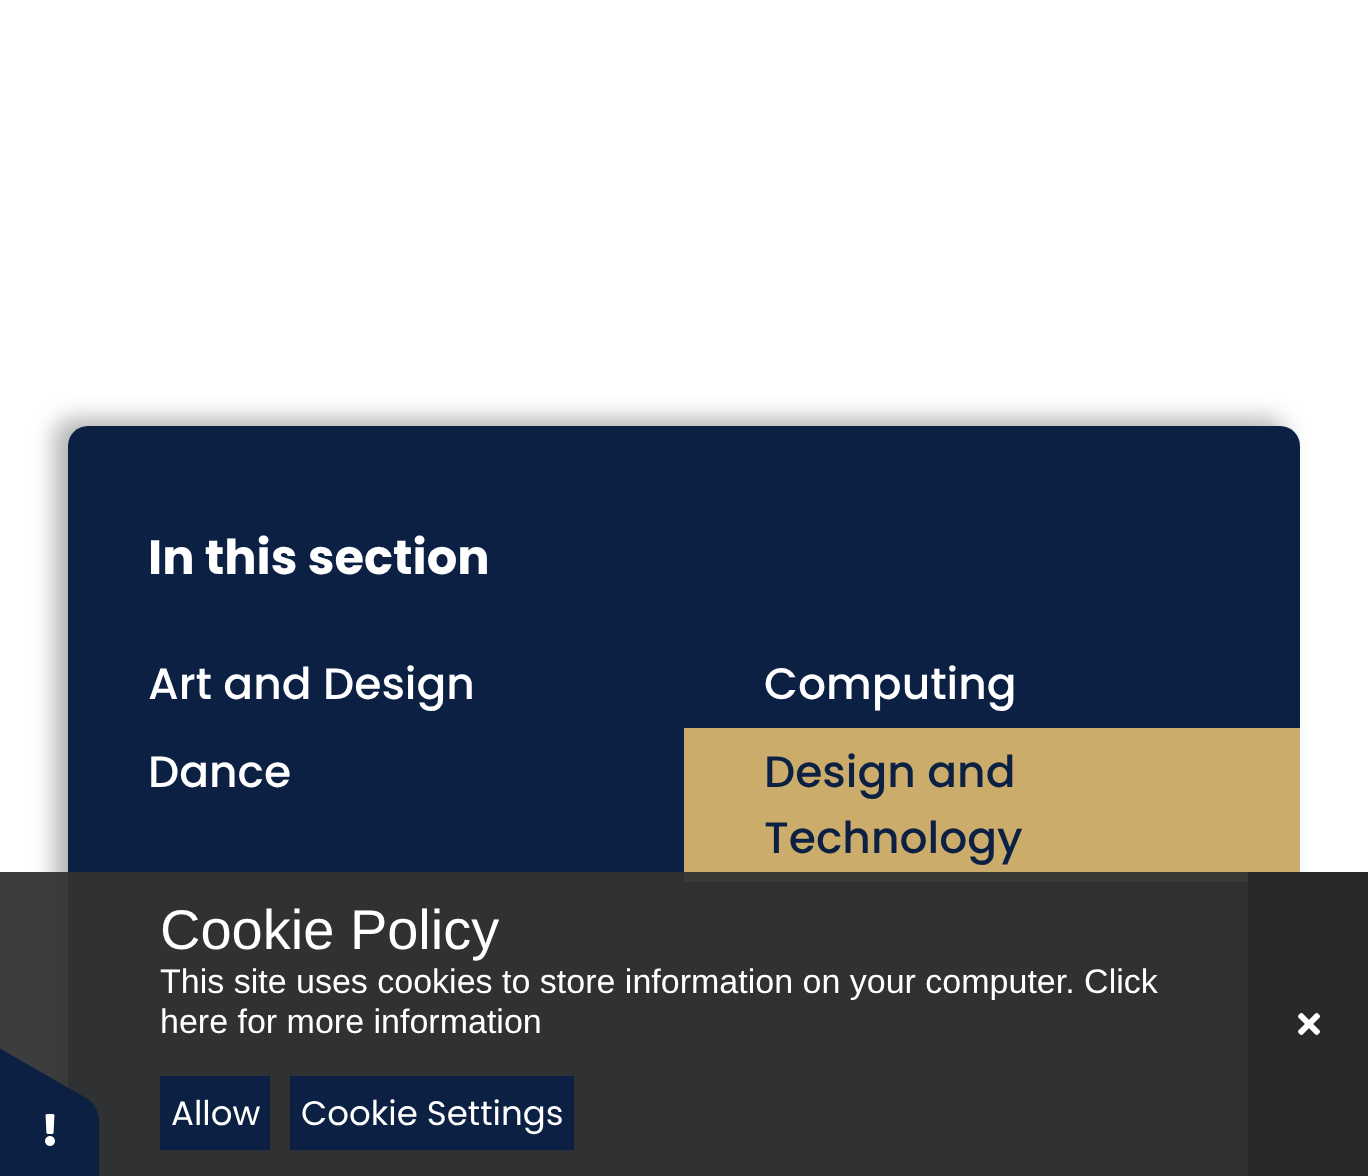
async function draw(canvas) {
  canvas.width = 1368;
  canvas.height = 1176;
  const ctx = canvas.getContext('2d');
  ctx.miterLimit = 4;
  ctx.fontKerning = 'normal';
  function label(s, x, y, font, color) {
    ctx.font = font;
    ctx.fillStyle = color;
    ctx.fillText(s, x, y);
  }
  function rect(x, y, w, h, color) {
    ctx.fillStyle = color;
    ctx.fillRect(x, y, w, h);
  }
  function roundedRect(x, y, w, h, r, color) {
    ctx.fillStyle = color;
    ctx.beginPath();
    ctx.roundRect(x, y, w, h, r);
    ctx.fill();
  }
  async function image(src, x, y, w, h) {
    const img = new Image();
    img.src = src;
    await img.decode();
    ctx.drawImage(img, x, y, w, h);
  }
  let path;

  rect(0, 0, 1368, 1176, '#fff');
  ctx.fillStyle = '#0000004a';
  ctx.filter = 'blur(11px)';
  ctx.beginPath();
  ctx.roundRect(54, 418, 1232, 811, 20);
  ctx.fill();
  ctx.filter = 'none';
  roundedRect(68, 426, 1232, 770, 20, '#0b2042');
  label('In this section', 148, 574, 'bold 48px Poppins', '#fff');
  label('Art and Design', 148, 699, '500 44px Poppins', '#fff');
  label('Computing', 764, 699, '500 44px Poppins', '#fff');
  label('Dance', 148, 787, '500 44px Poppins', '#fff');
  rect(684, 728, 616, 154, '#ccac6a');
  label('Design and', 764, 787, '500 44px Poppins', '#0b2042');
  label('Technology', 764, 853, '500 44px Poppins', '#0b2042');
  rect(0, 872, 1248, 304, '#333333f2');
  ctx.fillStyle = '#0b2042';
  path = new Path2D('M99 1122V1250C99 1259 96 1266 91 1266H-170C-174 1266-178 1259-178 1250V1122C-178 1113-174 1106-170 1106H91C96 1106 99 1113 99 1122Z');
  ctx.fill(path);
  path = new Path2D('M-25 1034L86 1098C93 1102 98 1109 95 1113L-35 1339C-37 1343-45 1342-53 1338L-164 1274C-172 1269-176 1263-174 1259L-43 1033C-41 1029-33 1029-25 1034Z');
  ctx.fill(path);
  await image('assets/img1.png', 45, 1114, 10, 32);
  label('Cookie Policy', 160, 949, '56px Liberation Sans', '#fff');
  label('This site uses cookies to store information on your computer. Click', 160, 993, '34px Liberation Sans', '#fff');
  label('here for more information', 160, 1033, '34px Liberation Sans', '#fff');
  rect(160, 1076, 110, 74, '#0b2042');
  label('Allow', 171, 1125, '34px Poppins', '#fff');
  rect(290, 1076, 284, 74, '#0b2042');
  label('Cookie Settings', 301, 1125, '34px Poppins', '#fff');
  rect(1248, 872, 120, 304, '#292929');
  await image('assets/img2.png', 1298, 1013, 22, 22);
}

draw(document.querySelector('canvas'));
